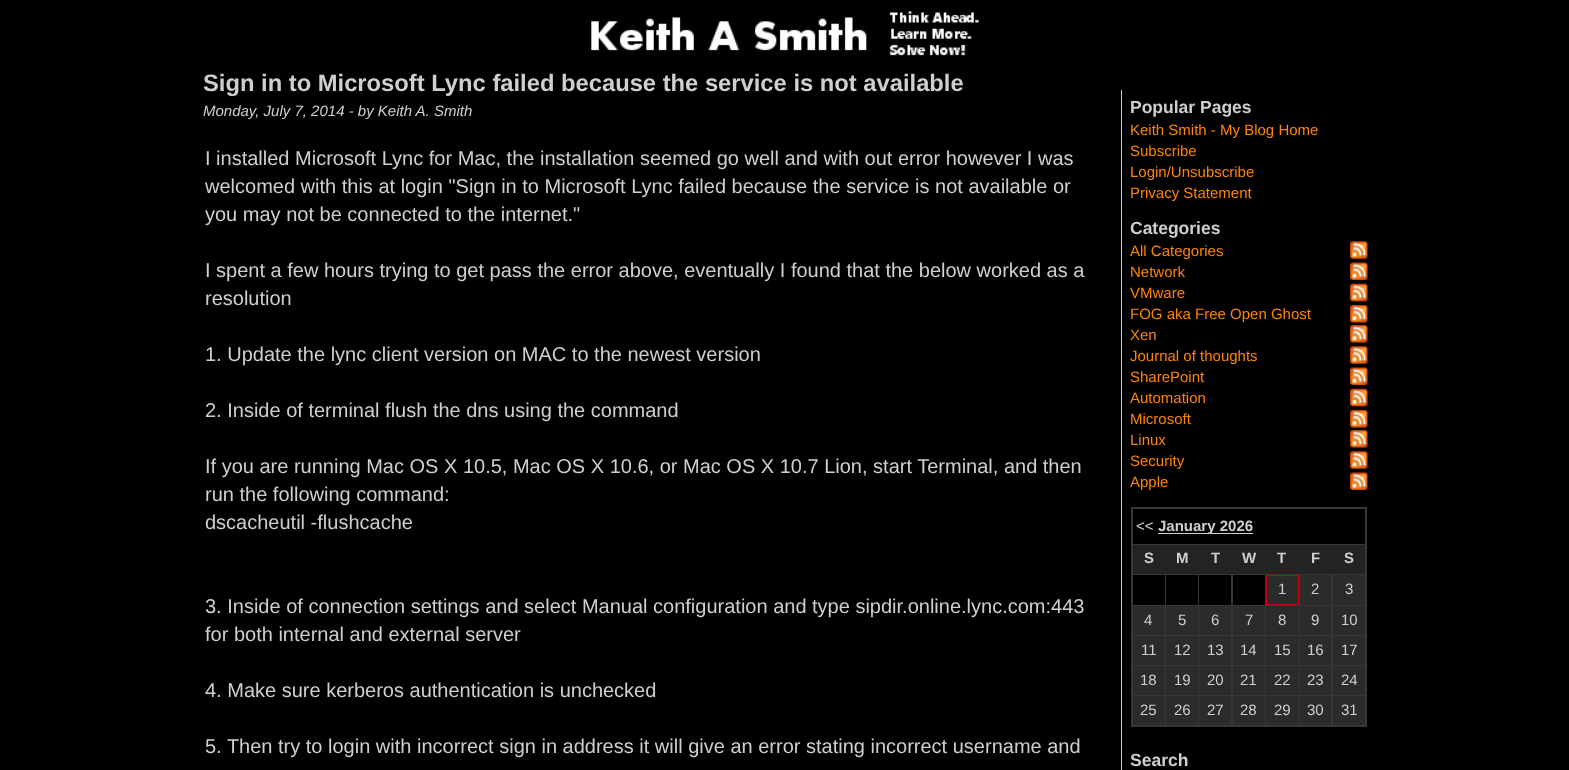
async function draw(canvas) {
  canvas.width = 1569;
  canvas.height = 770;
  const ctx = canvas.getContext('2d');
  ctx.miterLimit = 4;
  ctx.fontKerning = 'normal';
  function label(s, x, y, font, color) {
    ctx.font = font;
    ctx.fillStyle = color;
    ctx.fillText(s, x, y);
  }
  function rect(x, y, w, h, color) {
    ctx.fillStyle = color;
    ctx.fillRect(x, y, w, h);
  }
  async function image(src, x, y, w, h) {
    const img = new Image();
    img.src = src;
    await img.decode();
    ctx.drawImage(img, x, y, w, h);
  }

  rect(0, 0, 1569, 770, '#000');
  await image('assets/img1.png', 591, 11, 388, 45);
  label('Sign in to Microsoft Lync failed because the service is not available', 203, 91, 'bold 23.75px Liberation Sans', '#cfcfcf');
  label('Monday, July 7, 2014 - by Keith A. Smith', 203, 116, 'italic 15px Liberation Sans', '#cfcfcf');
  label('I installed Microsoft Lync for Mac, the installation seemed go well and with out error however I was', 205, 165, '20px Liberation Sans', '#cfcfcf');
  label('welcomed with this at login "Sign in to Microsoft Lync failed because the service is not available or', 205, 193, '20px Liberation Sans', '#cfcfcf');
  label('you may not be connected to the internet."', 205, 221, '20px Liberation Sans', '#cfcfcf');
  label('I spent a few hours trying to get pass the error above, eventually I found that the below worked as a', 205, 277, '20px Liberation Sans', '#cfcfcf');
  label('resolution', 205, 305, '20px Liberation Sans', '#cfcfcf');
  label('1. Update the lync client version on MAC to the newest version', 205, 361, '20px Liberation Sans', '#cfcfcf');
  label('2. Inside of terminal flush the dns using the command', 205, 417, '20px Liberation Sans', '#cfcfcf');
  label('If you are running Mac OS X 10.5, Mac OS X 10.6, or Mac OS X 10.7 Lion, start Terminal, and then', 205, 473, '20px Liberation Sans', '#cfcfcf');
  label('run the following command:', 205, 501, '20px Liberation Sans', '#cfcfcf');
  label('dscacheutil -flushcache', 205, 529, '20px Liberation Sans', '#cfcfcf');
  label('3. Inside of connection settings and select Manual configuration and type sipdir.online.lync.com:443', 205, 613, '20px Liberation Sans', '#cfcfcf');
  label('for both internal and external server', 205, 641, '20px Liberation Sans', '#cfcfcf');
  label('4. Make sure kerberos authentication is unchecked', 205, 697, '20px Liberation Sans', '#cfcfcf');
  label('5. Then try to login with incorrect sign in address it will give an error stating incorrect username and', 205, 753, '20px Liberation Sans', '#cfcfcf');
  rect(1121, 90, 1, 680, '#ccc');
  label('Popular Pages', 1130, 113, 'bold 17.5px Liberation Sans', '#cfcfcf');
  label('Keith Smith - My Blog Home', 1130, 135, '15px Liberation Sans', '#ff8400');
  label('Subscribe', 1130, 156, '15px Liberation Sans', '#ff8400');
  label('Login/Unsubscribe', 1130, 177, '15px Liberation Sans', '#ff8400');
  label('Privacy Statement', 1130, 198, '15px Liberation Sans', '#ff8400');
  label('Categories', 1130, 234, 'bold 17.5px Liberation Sans', '#cfcfcf');
  label('All Categories', 1130, 256, '15px Liberation Sans', '#ff8400');
  await image('assets/img2.png', 1350, 241, 18, 18);
  label('Network', 1130, 277, '15px Liberation Sans', '#ff8400');
  await image('assets/img3.png', 1350, 262, 18, 18);
  label('VMware', 1130, 298, '15px Liberation Sans', '#ff8400');
  await image('assets/img4.png', 1350, 283, 18, 19);
  label('FOG aka Free Open Ghost', 1130, 319, '15px Liberation Sans', '#ff8400');
  await image('assets/img5.png', 1350, 305, 18, 18);
  label('Xen', 1130, 340, '15px Liberation Sans', '#ff8400');
  await image('assets/img5.png', 1350, 325, 18, 18);
  label('Journal of thoughts', 1130, 361, '15px Liberation Sans', '#ff8400');
  await image('assets/img2.png', 1350, 346, 18, 18);
  label('SharePoint', 1130, 382, '15px Liberation Sans', '#ff8400');
  await image('assets/img3.png', 1350, 367, 18, 18);
  label('Automation', 1130, 403, '15px Liberation Sans', '#ff8400');
  await image('assets/img6.png', 1350, 388, 18, 19);
  label('Microsoft', 1130, 424, '15px Liberation Sans', '#ff8400');
  await image('assets/img5.png', 1350, 410, 18, 18);
  label('Linux', 1130, 445, '15px Liberation Sans', '#ff8400');
  await image('assets/img5.png', 1350, 430, 18, 18);
  label('Security', 1130, 466, '15px Liberation Sans', '#ff8400');
  await image('assets/img2.png', 1350, 451, 18, 18);
  label('Apple', 1130, 487, '15px Liberation Sans', '#ff8400');
  await image('assets/img3.png', 1350, 472, 18, 18);
  rect(1131, 507, 236, 220, '#373737');
  rect(1133, 509, 232, 35, '#000');
  label('<<', 1136, 531, '15px Liberation Sans', '#cfcfcf');
  rect(1158, 533, 95, 1, '#cfcfcf');
  label('January 2026', 1158, 531, 'bold 15px Liberation Sans', '#cfcfcf');
  rect(1133, 545, 232, 29, '#232323');
  label('S', 1144, 563, 'bold 15px Liberation Sans', '#cfcfcf');
  label('M', 1176, 563, 'bold 15px Liberation Sans', '#cfcfcf');
  label('T', 1211, 563, 'bold 15px Liberation Sans', '#cfcfcf');
  label('W', 1242, 563, 'bold 15px Liberation Sans', '#cfcfcf');
  label('T', 1277, 563, 'bold 15px Liberation Sans', '#cfcfcf');
  label('F', 1311, 563, 'bold 15px Liberation Sans', '#cfcfcf');
  label('S', 1344, 563, 'bold 15px Liberation Sans', '#cfcfcf');
  rect(1133, 575, 32, 30, '#000');
  rect(1166, 575, 32, 30, '#000');
  rect(1199, 575, 32, 30, '#000');
  rect(1233, 575, 32, 30, '#000');
  ctx.fillStyle = '#2b2b2b';
  ctx.beginPath();
  ctx.rect(1266.5, 575.5, 32, 29);
  ctx.fill();
  ctx.strokeStyle = '#c00';
  ctx.stroke();
  label('1', 1278, 594, '15px Liberation Sans', '#cfcfcf');
  rect(1300, 575, 31, 30, '#2b2b2b');
  label('2', 1311, 594, '15px Liberation Sans', '#cfcfcf');
  rect(1333, 575, 32, 30, '#2b2b2b');
  label('3', 1345, 594, '15px Liberation Sans', '#cfcfcf');
  rect(1133, 606, 32, 29, '#2b2b2b');
  label('4', 1144, 625, '15px Liberation Sans', '#cfcfcf');
  rect(1166, 606, 32, 29, '#2b2b2b');
  label('5', 1178, 625, '15px Liberation Sans', '#cfcfcf');
  rect(1199, 606, 32, 29, '#2b2b2b');
  label('6', 1211, 625, '15px Liberation Sans', '#cfcfcf');
  rect(1233, 606, 32, 29, '#2b2b2b');
  label('7', 1245, 625, '15px Liberation Sans', '#cfcfcf');
  rect(1266, 606, 33, 29, '#2b2b2b');
  label('8', 1278, 625, '15px Liberation Sans', '#cfcfcf');
  rect(1300, 606, 31, 29, '#2b2b2b');
  label('9', 1311, 625, '15px Liberation Sans', '#cfcfcf');
  rect(1333, 606, 32, 29, '#2b2b2b');
  label('10', 1341, 625, '15px Liberation Sans', '#cfcfcf');
  rect(1133, 636, 32, 29, '#2b2b2b');
  label('11', 1141, 655, '15px Liberation Sans', '#cfcfcf');
  rect(1166, 636, 32, 29, '#2b2b2b');
  label('12', 1174, 655, '15px Liberation Sans', '#cfcfcf');
  rect(1199, 636, 32, 29, '#2b2b2b');
  label('13', 1207, 655, '15px Liberation Sans', '#cfcfcf');
  rect(1233, 636, 32, 29, '#2b2b2b');
  label('14', 1240, 655, '15px Liberation Sans', '#cfcfcf');
  rect(1266, 636, 33, 29, '#2b2b2b');
  label('15', 1274, 655, '15px Liberation Sans', '#cfcfcf');
  rect(1300, 636, 31, 29, '#2b2b2b');
  label('16', 1307, 655, '15px Liberation Sans', '#cfcfcf');
  rect(1333, 636, 32, 29, '#2b2b2b');
  label('17', 1341, 655, '15px Liberation Sans', '#cfcfcf');
  rect(1133, 666, 32, 29, '#2b2b2b');
  label('18', 1140, 685, '15px Liberation Sans', '#cfcfcf');
  rect(1166, 666, 32, 29, '#2b2b2b');
  label('19', 1174, 685, '15px Liberation Sans', '#cfcfcf');
  rect(1199, 666, 32, 29, '#2b2b2b');
  label('20', 1207, 685, '15px Liberation Sans', '#cfcfcf');
  rect(1233, 666, 32, 29, '#2b2b2b');
  label('21', 1240, 685, '15px Liberation Sans', '#cfcfcf');
  rect(1266, 666, 33, 29, '#2b2b2b');
  label('22', 1274, 685, '15px Liberation Sans', '#cfcfcf');
  rect(1300, 666, 31, 29, '#2b2b2b');
  label('23', 1307, 685, '15px Liberation Sans', '#cfcfcf');
  rect(1333, 666, 32, 29, '#2b2b2b');
  label('24', 1341, 685, '15px Liberation Sans', '#cfcfcf');
  rect(1133, 696, 32, 29, '#2b2b2b');
  label('25', 1140, 715, '15px Liberation Sans', '#cfcfcf');
  rect(1166, 696, 32, 29, '#2b2b2b');
  label('26', 1174, 715, '15px Liberation Sans', '#cfcfcf');
  rect(1199, 696, 32, 29, '#2b2b2b');
  label('27', 1207, 715, '15px Liberation Sans', '#cfcfcf');
  rect(1233, 696, 32, 29, '#2b2b2b');
  label('28', 1240, 715, '15px Liberation Sans', '#cfcfcf');
  rect(1266, 696, 33, 29, '#2b2b2b');
  label('29', 1274, 715, '15px Liberation Sans', '#cfcfcf');
  rect(1300, 696, 31, 29, '#2b2b2b');
  label('30', 1307, 715, '15px Liberation Sans', '#cfcfcf');
  rect(1333, 696, 32, 29, '#2b2b2b');
  label('31', 1341, 715, '15px Liberation Sans', '#cfcfcf');
  label('Search', 1130, 766, 'bold 17.5px Liberation Sans', '#cfcfcf');
}

draw(document.querySelector('canvas'));
